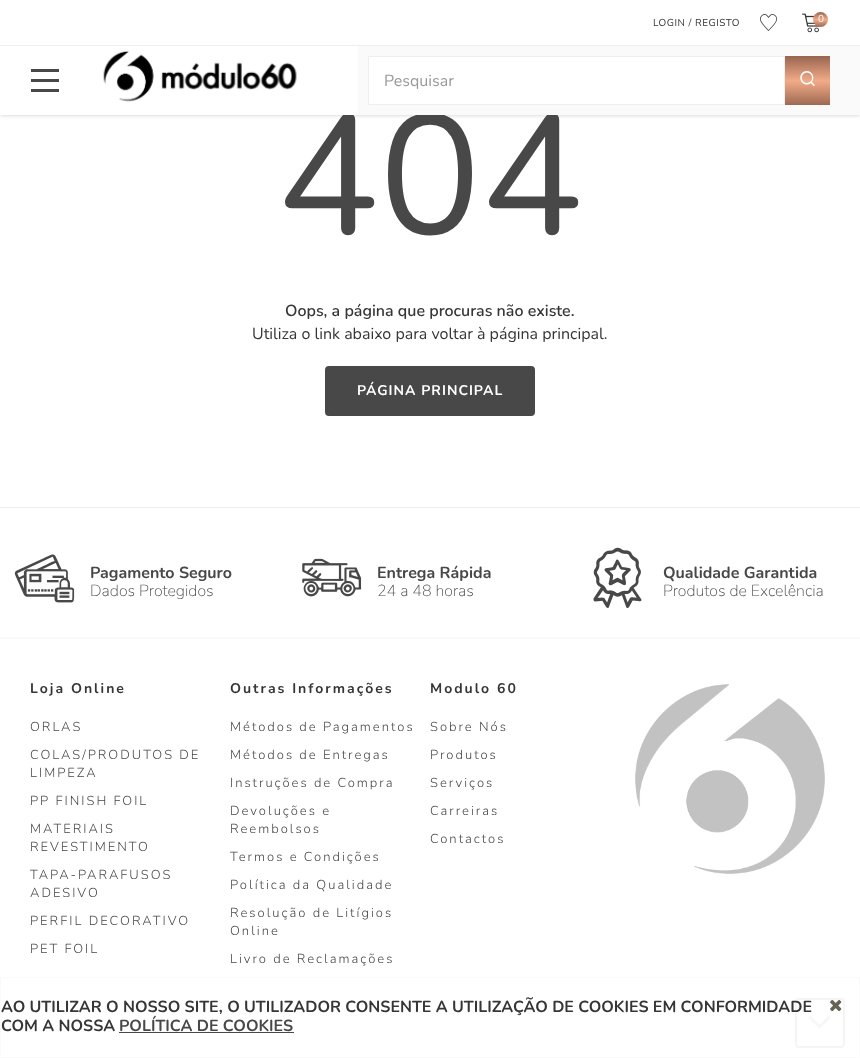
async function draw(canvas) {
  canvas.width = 860;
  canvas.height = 1058;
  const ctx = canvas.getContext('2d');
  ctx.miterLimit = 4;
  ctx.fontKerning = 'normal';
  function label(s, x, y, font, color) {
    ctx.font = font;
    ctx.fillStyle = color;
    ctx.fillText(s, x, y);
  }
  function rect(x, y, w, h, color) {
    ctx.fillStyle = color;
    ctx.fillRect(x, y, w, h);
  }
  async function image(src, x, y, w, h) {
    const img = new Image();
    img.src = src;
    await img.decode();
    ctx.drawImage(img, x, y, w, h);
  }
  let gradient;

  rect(0, 0, 860, 1058, '#fff');
  ctx.fillStyle = '#00000033';
  ctx.filter = 'blur(2px)';
  ctx.beginPath();
  ctx.rect(0, 0, 860, 115);
  ctx.fill();
  ctx.filter = 'none';
  label('404', 277, 234, '170px Nunito', '#484848');
  rect(0, 0, 860, 115, '#fff');
  ctx.letterSpacing = '0.5px';
  label('LOGIN / REGISTO', 653, 26, '10px Nunito', '#363636');
  await image('assets/img1.png', 760, 14, 18, 17);
  await image('assets/img2.png', 802, 13, 18, 20);
  gradient = ctx.createLinearGradient(821, 12, 821, 27);
  gradient.addColorStop(0, '#986550');
  gradient.addColorStop(0.51, '#f2ab88');
  gradient.addColorStop(1, '#9e6953');
  gradient.addColorStop(1, '#1e5799');
  ctx.fillStyle = gradient;
  ctx.beginPath();
  ctx.arc(820.5, 19.5, 7.5, 0, 2 * Math.PI);
  ctx.fill();
  ctx.letterSpacing = '0px';
  label('0', 818, 22, '10px Nunito', '#fff');
  rect(0, 45, 860, 1, '#eee');
  rect(31, 69, 28, 3, '#484848');
  rect(31, 79, 28, 3, '#484848');
  rect(31, 89, 28, 3, '#484848');
  await image('assets/img3.png', 103, 50, 194, 52);
  rect(358, 46, 502, 69, '#fafafa');
  ctx.fillStyle = '#fff';
  ctx.beginPath();
  ctx.rect(368.5, 56.5, 416, 48);
  ctx.fill();
  ctx.strokeStyle = '#eee';
  ctx.stroke();
  label('Pesquisar', 384, 86, '16px Nunito', '#999');
  gradient = ctx.createLinearGradient(808, 56, 808, 105);
  gradient.addColorStop(0, '#986550');
  gradient.addColorStop(0.51, '#f2ab88');
  gradient.addColorStop(1, '#9e6953');
  gradient.addColorStop(1, '#1e5799');
  ctx.fillStyle = gradient;
  ctx.fillRect(785, 56, 45, 49);
  await image('assets/img4.png', 800, 71, 15, 15);
  label('Oops, a página que procuras não existe.', 285, 316, '600 16px Nunito', '#363636');
  label('Utiliza o link abaixo para voltar à página principal.', 252, 339, '16px Nunito', '#363636');
  ctx.fillStyle = '#484848';
  ctx.beginPath();
  ctx.roundRect(326, 367, 208, 48, 3);
  ctx.fill();
  ctx.strokeStyle = '#484848';
  ctx.lineWidth = 2;
  ctx.stroke();
  ctx.letterSpacing = '1px';
  label('PÁGINA PRINCIPAL', 357, 395, 'bold 14px Nunito', '#fff');
  rect(0, 507, 860, 1, '#eee');
  await image('assets/img5.png', 14, 554, 61, 49);
  ctx.letterSpacing = '0px';
  label('Pagamento Seguro', 90, 578, 'bold 16px Nunito', '#484848');
  label('Dados Protegidos', 90, 596, '200 16px Nunito', '#484848');
  await image('assets/img6.png', 302, 558, 60, 39);
  label('Entrega Rápida', 377, 578, 'bold 16px Nunito', '#484848');
  label('24 a 48 horas', 377, 596, '200 16px Nunito', '#484848');
  await image('assets/img7.png', 593, 547, 49, 61);
  label('Qualidade Garantida', 663, 578, 'bold 16px Nunito', '#484848');
  label('Produtos de Excelência', 663, 596, '200 16px Nunito', '#484848');
  rect(0, 637, 860, 2, '#fafafa');
  ctx.letterSpacing = '2px';
  label('Loja Online', 30, 693, 'bold 14px Nunito', '#363636');
  label('ORLAS', 30, 731, '300 13px Nunito', '#484848');
  label('COLAS/PRODUTOS DE', 30, 759, '300 13px Nunito', '#484848');
  label('LIMPEZA', 30, 777, '300 13px Nunito', '#484848');
  label('PP FINISH FOIL', 30, 805, '300 13px Nunito', '#484848');
  label('MATERIAIS', 30, 833, '300 13px Nunito', '#484848');
  label('REVESTIMENTO', 30, 851, '300 13px Nunito', '#484848');
  label('TAPA-PARAFUSOS', 30, 879, '300 13px Nunito', '#484848');
  label('ADESIVO', 30, 897, '300 13px Nunito', '#484848');
  label('PERFIL DECORATIVO', 30, 925, '300 13px Nunito', '#484848');
  label('PET FOIL', 30, 953, '300 13px Nunito', '#484848');
  label('Outras Informações', 230, 693, 'bold 14px Nunito', '#363636');
  label('Métodos de Pagamentos', 230, 731, '300 13px Nunito', '#484848');
  label('Métodos de Entregas', 230, 759, '300 13px Nunito', '#484848');
  label('Instruções de Compra', 230, 787, '300 13px Nunito', '#484848');
  label('Devoluções e', 230, 815, '300 13px Nunito', '#484848');
  label('Reembolsos', 230, 833, '300 13px Nunito', '#484848');
  label('Termos e Condições', 230, 861, '300 13px Nunito', '#484848');
  label('Política da Qualidade', 230, 889, '300 13px Nunito', '#484848');
  label('Resolução de Litígios', 230, 917, '300 13px Nunito', '#484848');
  label('Online', 230, 935, '300 13px Nunito', '#484848');
  label('Livro de Reclamações', 230, 963, '300 13px Nunito', '#484848');
  label('Modulo 60', 430, 693, 'bold 14px Nunito', '#363636');
  label('Sobre Nós', 430, 731, '300 13px Nunito', '#484848');
  label('Produtos', 430, 759, '300 13px Nunito', '#484848');
  label('Serviços', 430, 787, '300 13px Nunito', '#484848');
  label('Carreiras', 430, 815, '300 13px Nunito', '#484848');
  label('Contactos', 430, 843, '300 13px Nunito', '#484848');
  await image('assets/img8.png', 635, 684, 190, 190);
  ctx.beginPath();
  ctx.roundRect(796, 999, 48, 48, 3);
  ctx.stroke();
  await image('assets/img10.png', 808, 1015, 23, 14);
  rect(795, 998, 50, 50, '#fffffff2');
  ctx.strokeStyle = '#fafafa';
  ctx.lineWidth = 1;
  ctx.strokeRect(0.5, 977.5, 859, 80);
  ctx.letterSpacing = '0px';
  label('AO UTILIZAR O NOSSO SITE, O UTILIZADOR CONSENTE A UTILIZAÇÃO DE COOKIES EM CONFORMIDADE', 1, 1012, 'bold 16px Nunito', '#363636');
  label('COM A NOSSA', 1, 1031, 'bold 16px Nunito', '#363636');
  label('POLÍTICA DE COOKIES', 119, 1031, 'bold 16px Nunito', '#484848');
  rect(119, 1032, 175, 1, '#484848');
  await image('assets/img9.png', 830, 1000, 12, 12);
}

draw(document.querySelector('canvas'));
